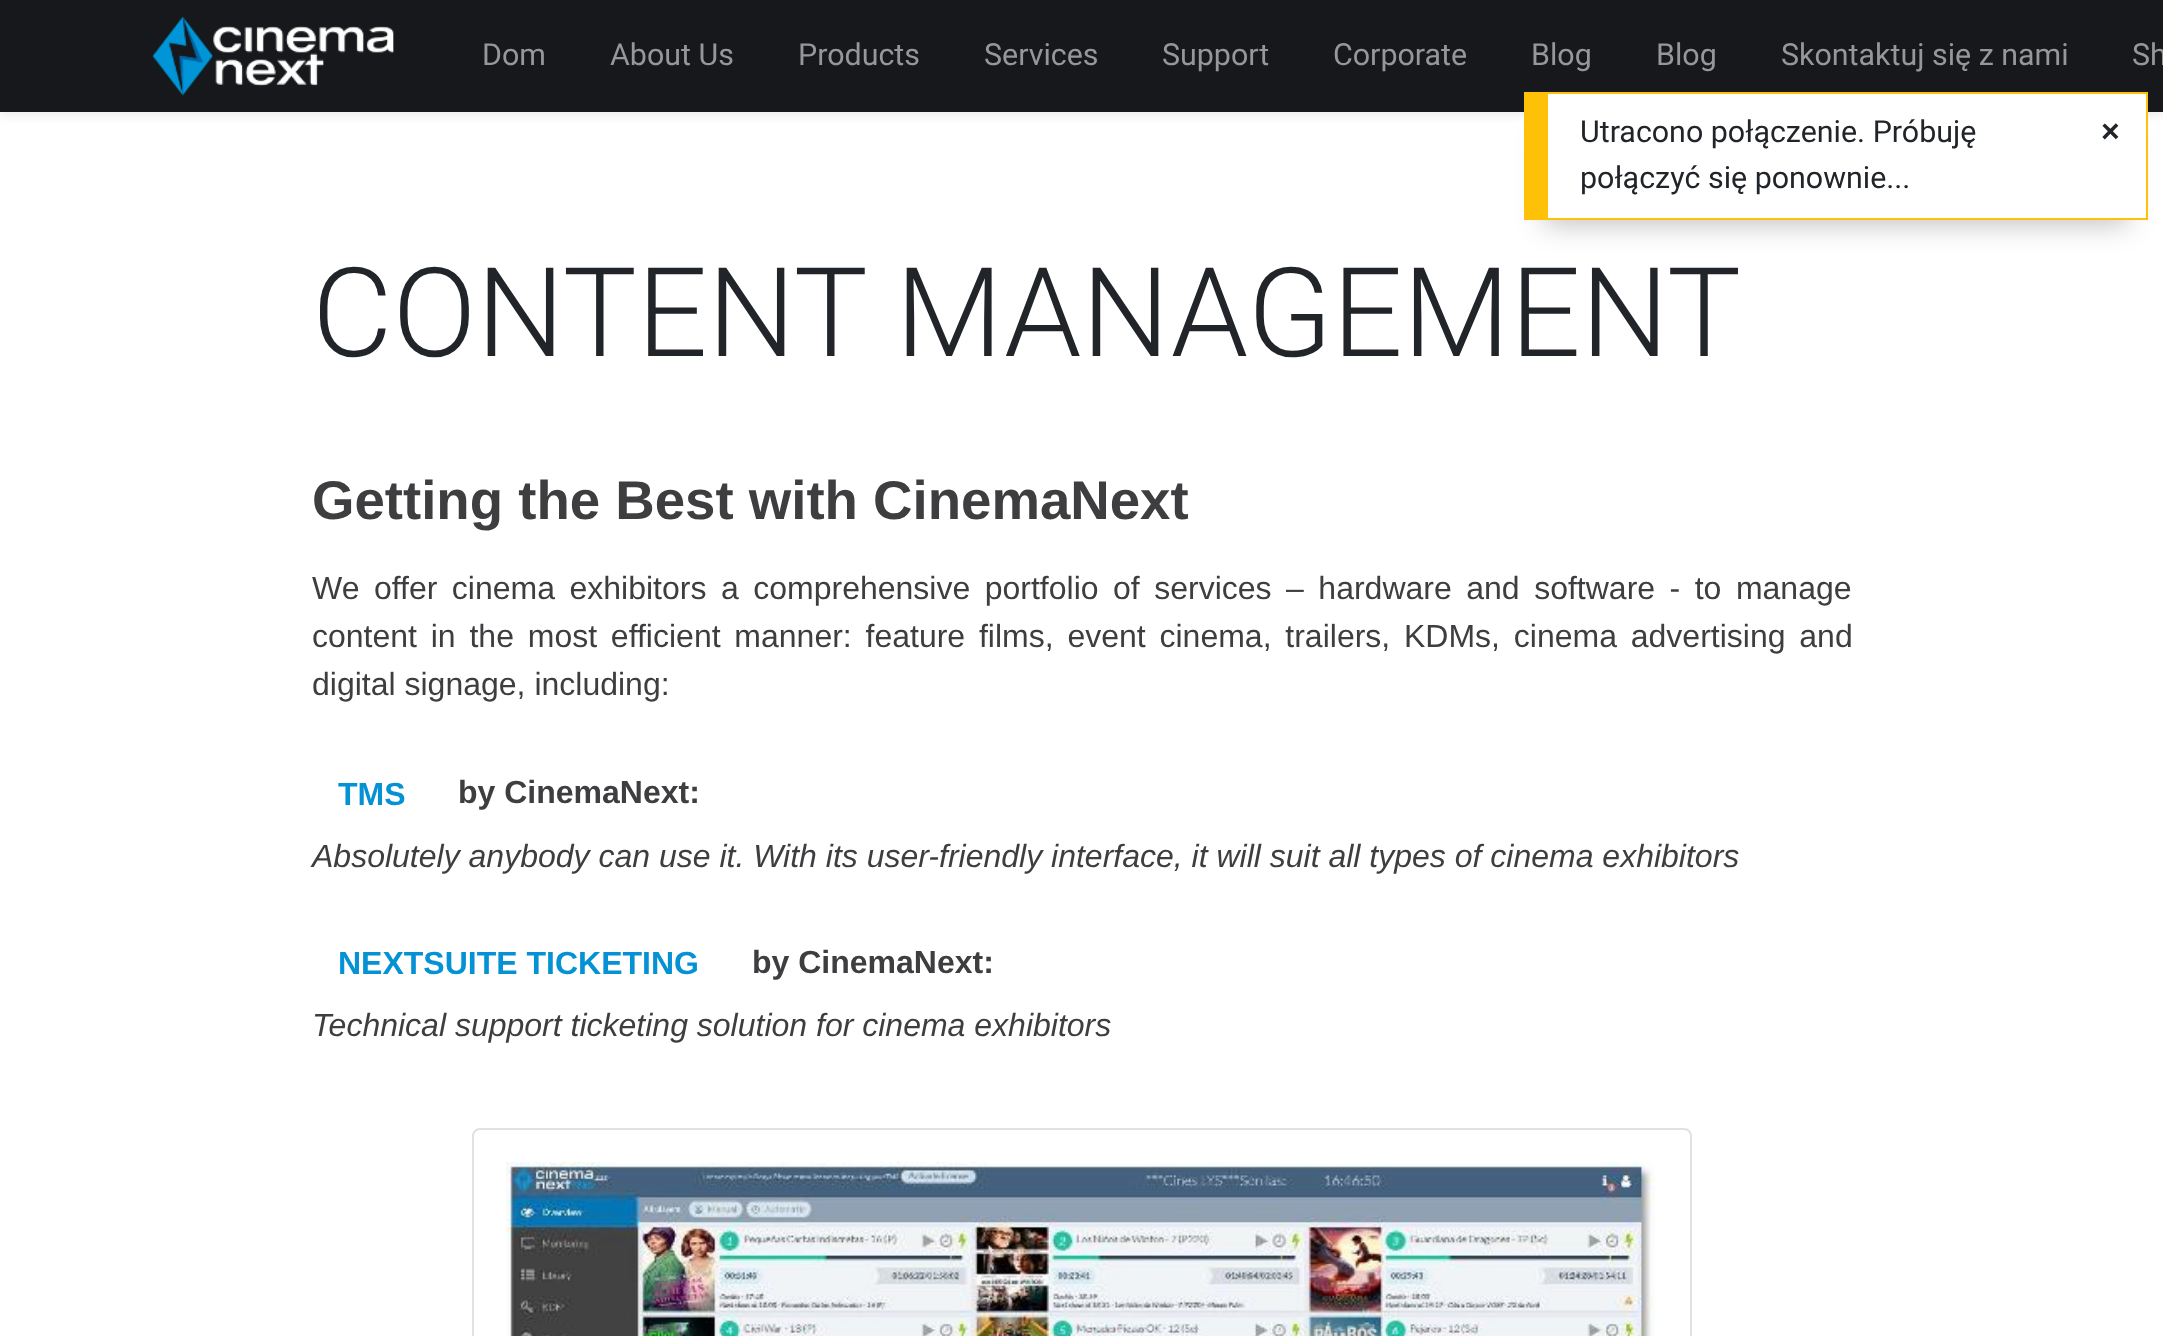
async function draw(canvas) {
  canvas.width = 2163;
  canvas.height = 1336;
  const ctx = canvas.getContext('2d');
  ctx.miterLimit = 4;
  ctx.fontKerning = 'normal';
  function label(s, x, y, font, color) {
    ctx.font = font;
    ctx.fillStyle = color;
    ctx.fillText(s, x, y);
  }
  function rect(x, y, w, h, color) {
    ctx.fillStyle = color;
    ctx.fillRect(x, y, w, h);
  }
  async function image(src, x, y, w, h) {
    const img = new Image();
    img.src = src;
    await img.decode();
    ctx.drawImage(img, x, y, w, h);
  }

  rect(0, 0, 2163, 1336, '#fff');
  ctx.fillStyle = '#00000012';
  ctx.filter = 'blur(4px)';
  ctx.beginPath();
  ctx.rect(0, 4, 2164, 112);
  ctx.fill();
  ctx.filter = 'none';
  rect(0, 0, 2163, 112, '#16181b');
  await image('assets/img1.png', 152, 16, 242, 80);
  label('Dom', 482, 65, '30.4px Roboto', '#969798');
  label('About Us', 610, 65, '30.4px Roboto', '#969798');
  label('Products', 798, 65, '30.4px Roboto', '#969798');
  label('Services', 984, 65, '30.4px Roboto', '#969798');
  label('Support', 1162, 65, '30.4px Roboto', '#969798');
  label('Corporate', 1333, 65, '30.4px Roboto', '#969798');
  label('Blog', 1531, 65, '30.4px Roboto', '#969798');
  label('Blog', 1656, 65, '30.4px Roboto', '#969798');
  label('Skontaktuj się z nami', 1781, 65, '30.4px Roboto', '#969798');
  label('Sh', 2132, 65, '30.4px Roboto', '#969798');
  label('CONTENT MANAGEMENT', 312, 356, '300 124px Roboto', '#212529');
  label('Getting the Best with CinemaNext', 312, 519, 'bold 54.6px Liberation Sans', '#3e3d40');
  ctx.wordSpacing = '5.6px';
  label('We offer cinema exhibitors a comprehensive portfolio of services – hardware and software - to manage', 312, 599, '32px Liberation Sans', '#3e3d40');
  ctx.wordSpacing = '4.9px';
  label('content in the most efficient manner: feature films, event cinema, trailers, KDMs, cinema advertising and', 312, 647, '32px Liberation Sans', '#3e3d40');
  ctx.wordSpacing = '0px';
  label('digital signage, including:', 312, 695, '32px Liberation Sans', '#3e3d40');
  label('TMS', 338, 805, 'bold 32px Liberation Sans', '#0492d4');
  label('by CinemaNext:', 458, 803, 'bold 32px Liberation Sans', '#3e3d40');
  label('Absolutely anybody can use it. With its user-friendly interface, it will suit all types of cinema exhibitors', 312, 867, 'italic 32px Liberation Sans', '#3e3d40');
  label('NEXTSUITE TICKETING', 338, 974, 'bold 32px Liberation Sans', '#0492d4');
  label('by CinemaNext:', 752, 973, 'bold 32px Liberation Sans', '#3e3d40');
  label('Technical support ticketing solution for cinema exhibitors', 312, 1036, 'italic 32px Liberation Sans', '#3e3d40');
  ctx.beginPath();
  ctx.roundRect(473, 1129, 1218, 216, 7);
  ctx.strokeStyle = '#dee2e6';
  ctx.lineWidth = 2;
  ctx.stroke();
  await image('assets/img2.png', 506, 1162, 1149, 174);
  ctx.fillStyle = '#00000040';
  ctx.filter = 'blur(14px)';
  ctx.beginPath();
  ctx.rect(1544, 136, 584, 88);
  ctx.fill();
  ctx.filter = 'none';
  rect(1548, 94, 598, 124, '#fff');
  rect(1548, 92, 600, 2, '#ffc107');
  rect(2146, 92, 2, 128, '#ffc107');
  rect(1548, 218, 600, 2, '#ffc107');
  rect(1524, 92, 24, 128, '#ffc107');
  label('Utracono połączenie. Próbuję', 1580, 142, '30.4px Roboto', '#212529');
  label('połączyć się ponownie...', 1580, 188, '30.4px Roboto', '#212529');
  label('×', 2101, 142, 'bold 32px Liberation Sans', '#212529');
}

draw(document.querySelector('canvas'));
